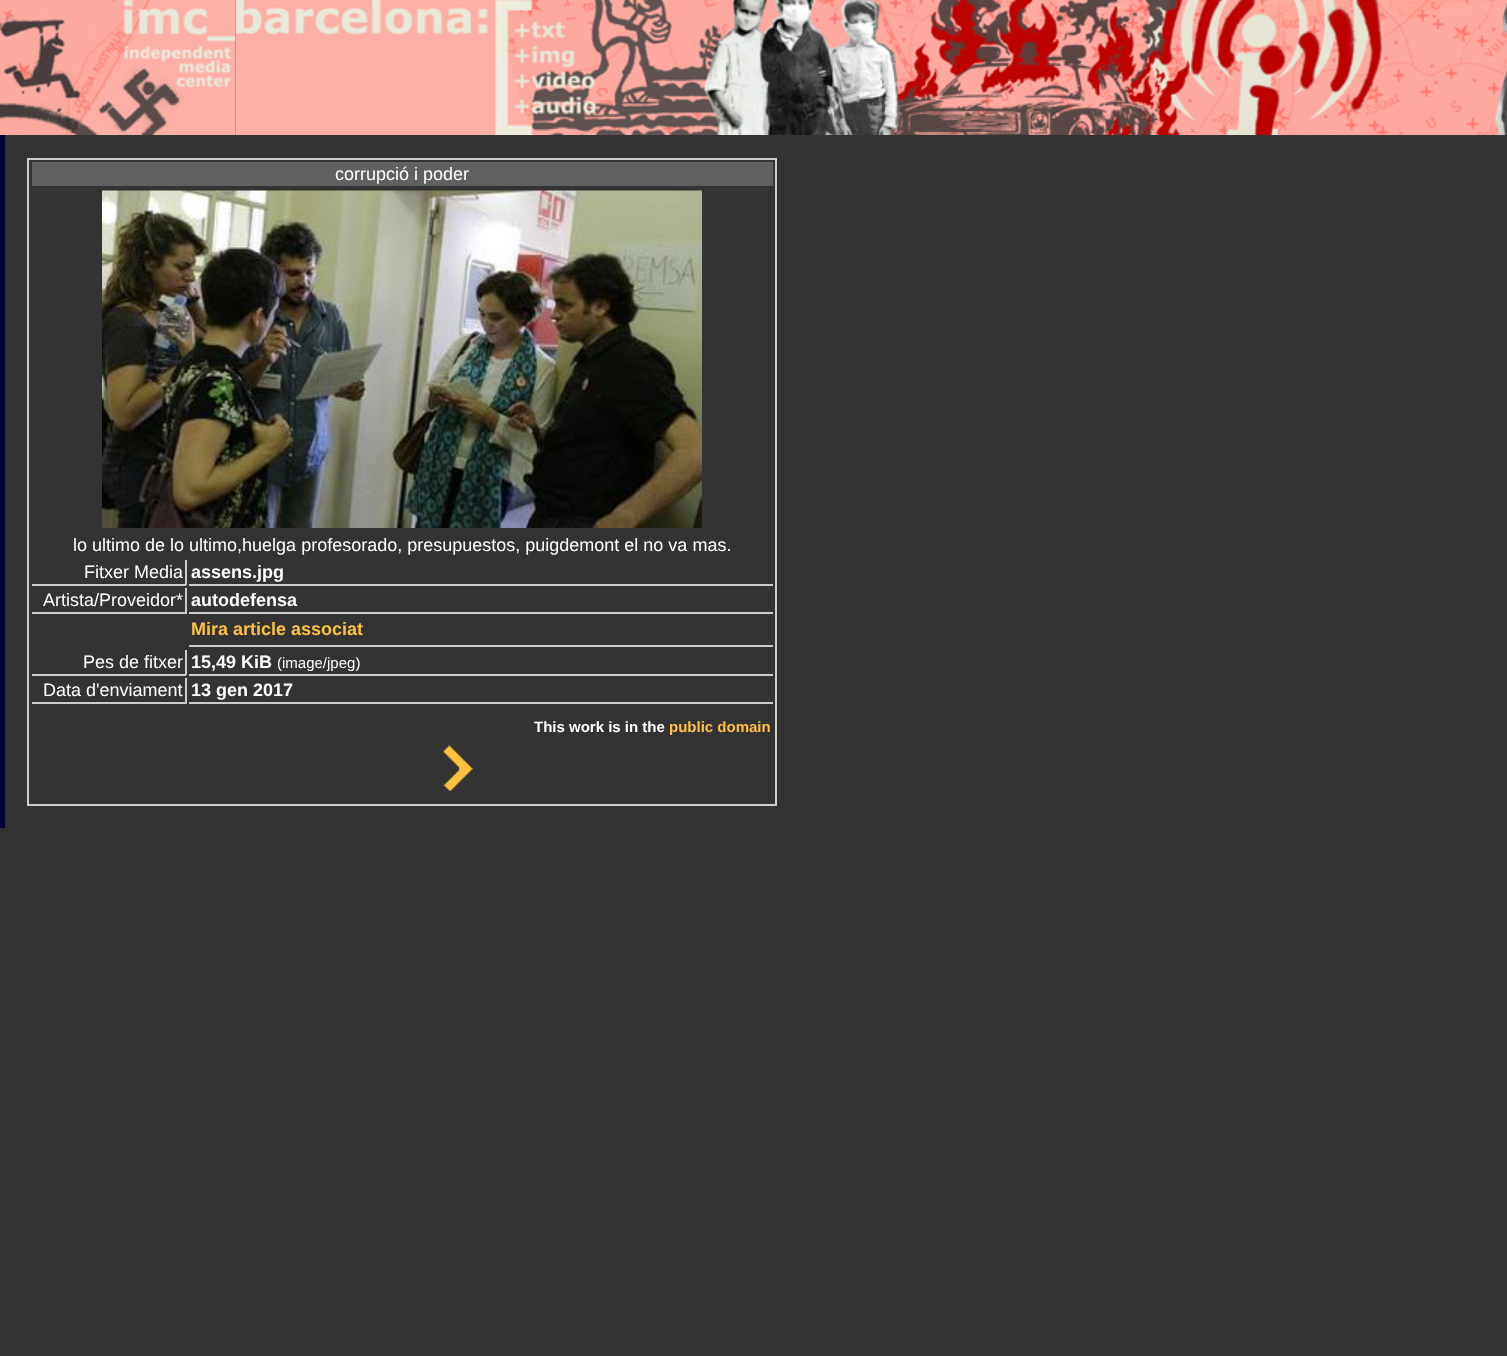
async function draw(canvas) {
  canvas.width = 1507;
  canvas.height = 1356;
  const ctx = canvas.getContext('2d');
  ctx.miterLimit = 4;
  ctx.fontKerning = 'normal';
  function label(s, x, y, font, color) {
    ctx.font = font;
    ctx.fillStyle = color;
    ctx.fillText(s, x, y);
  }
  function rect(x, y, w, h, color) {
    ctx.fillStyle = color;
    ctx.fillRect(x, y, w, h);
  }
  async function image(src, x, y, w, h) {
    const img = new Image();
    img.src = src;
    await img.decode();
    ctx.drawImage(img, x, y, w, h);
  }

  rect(0, 0, 1507, 1356, '#333');
  await image('assets/img1.png', 0, 0, 236, 135);
  await image('assets/img2.png', 235, 0, 1272, 135);
  rect(0, 135, 5, 693, '#003');
  ctx.strokeStyle = '#ccc';
  ctx.lineWidth = 2;
  ctx.strokeRect(28, 159, 748, 646);
  rect(32, 162, 741, 24, '#606060');
  label('corrupció i poder', 335, 180, '18px Liberation Sans', '#fff');
  await image('assets/img3.png', 102, 190, 600, 338);
  label('lo ultimo de lo ultimo,huelga profesorado, presupuestos, puigdemont el no va mas.', 73, 551, '18px Liberation Sans', '#fff');
  rect(185, 560, 2, 25, '#ccc');
  rect(32, 584, 154, 2, '#ccc');
  label('Fitxer Media', 84, 578, '18px Liberation Sans', '#fff');
  rect(189, 584, 584, 2, '#ccc');
  label('assens.jpg', 191, 578, 'bold 18px Liberation Sans', '#fff');
  rect(185, 588, 2, 26, '#ccc');
  rect(32, 612, 154, 2, '#ccc');
  label('Artista/Proveidor*', 43, 606, '18px Liberation Sans', '#fff');
  rect(189, 612, 584, 2, '#ccc');
  label('autodefensa', 191, 606, 'bold 18px Liberation Sans', '#fff');
  rect(189, 645, 584, 2, '#ccc');
  label('Mira article associat', 191, 635, 'bold 18px Liberation Sans', '#ffc140');
  rect(185, 650, 2, 25, '#ccc');
  rect(32, 674, 154, 2, '#ccc');
  label('Pes de fitxer', 83, 668, '18px Liberation Sans', '#fff');
  rect(189, 674, 584, 2, '#ccc');
  label('15,49 KiB', 191, 668, 'bold 18px Liberation Sans', '#fff');
  label('(image/jpeg)', 277, 668, '15px Liberation Sans', '#fff');
  rect(185, 678, 2, 26, '#ccc');
  rect(32, 702, 154, 2, '#ccc');
  label('Data d\'enviament', 43, 696, '18px Liberation Sans', '#fff');
  rect(189, 702, 584, 2, '#ccc');
  label('13 gen 2017', 191, 696, 'bold 18px Liberation Sans', '#fff');
  label('This work is in the', 534, 732, 'bold 15px Liberation Sans', '#fff');
  label('public domain', 669, 732, 'bold 15px Liberation Sans', '#ffc140');
  await image('assets/img4.png', 443, 745, 30, 46);
}

draw(document.querySelector('canvas'));
